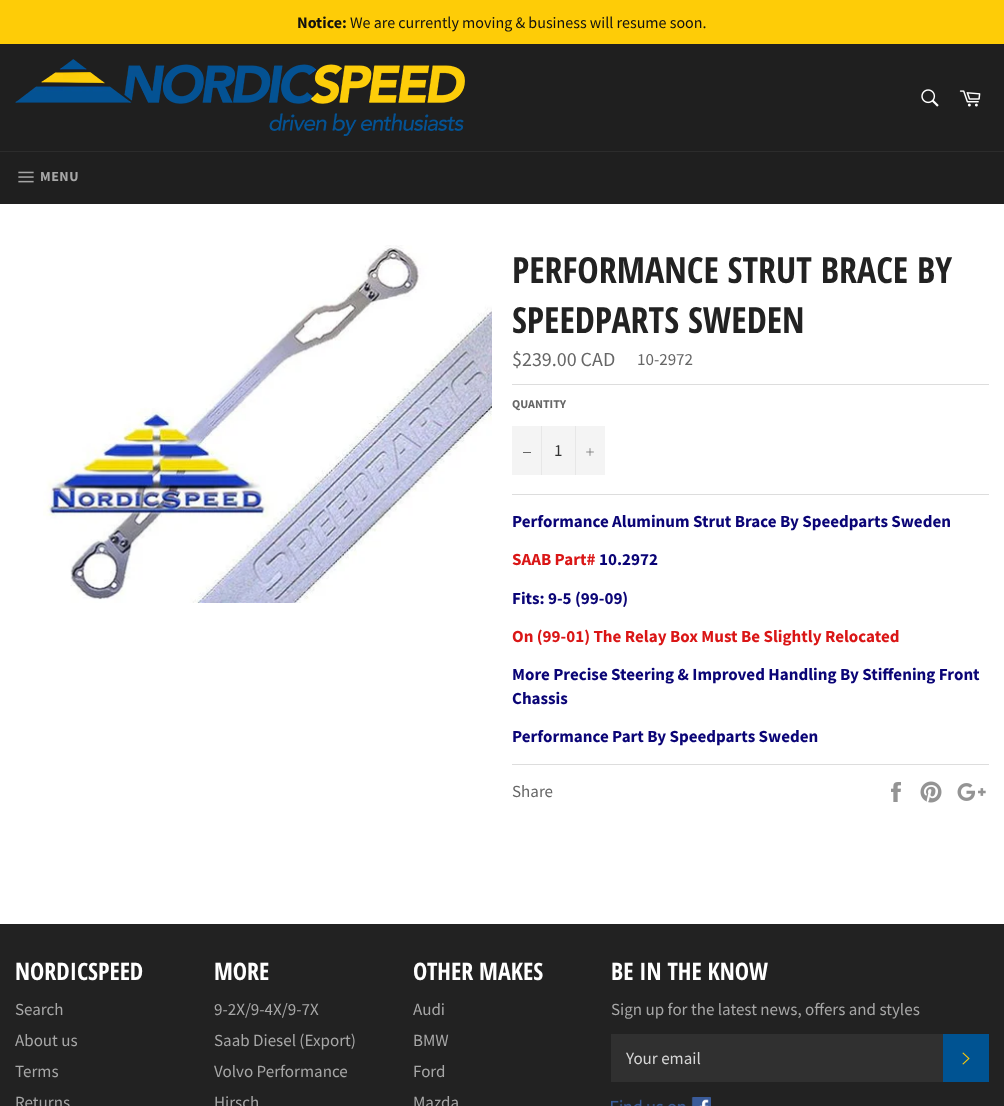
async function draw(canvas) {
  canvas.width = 1004;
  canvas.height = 1106;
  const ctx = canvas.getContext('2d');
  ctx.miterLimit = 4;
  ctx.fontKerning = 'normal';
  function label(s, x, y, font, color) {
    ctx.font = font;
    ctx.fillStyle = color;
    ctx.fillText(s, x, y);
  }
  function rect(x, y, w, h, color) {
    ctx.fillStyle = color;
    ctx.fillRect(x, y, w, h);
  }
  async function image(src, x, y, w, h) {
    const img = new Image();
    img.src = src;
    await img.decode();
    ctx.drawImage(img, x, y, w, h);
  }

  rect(0, 0, 1004, 1106, '#fff');
  rect(0, 0, 1004, 44, '#fecc07');
  label('Notice:', 297, 28, 'bold 16px Source Sans Pro', '#111');
  label('We are currently moving & business will resume soon.', 350, 28, '16px Source Sans Pro', '#111');
  rect(0, 44, 1004, 107, '#1f1f1f');
  await image('assets/img1.png', 15, 59, 450, 77);
  await image('assets/img2.png', 921, 89, 18, 18);
  await image('assets/img3.png', 959, 90, 22, 17);
  rect(0, 152, 1004, 52, '#1f1f1f');
  rect(0, 151, 1004, 1, '#2c2c2c');
  await image('assets/img4.png', 18, 171, 16, 12);
  ctx.letterSpacing = '0.5px';
  label('MENU', 40, 181, 'bold 14px Source Sans Pro', '#a7a7a7');
  await image('assets/img5.png', 43, 245, 449, 358);
  ctx.letterSpacing = '0px';
  label('PERFORMANCE STRUT BRACE BY', 512, 283, 'bold 36px Open Sans Condensed', '#222');
  label('SPEEDPARTS SWEDEN', 512, 333, 'bold 36px Open Sans Condensed', '#222');
  label('$239.00 CAD', 512, 366, '20px Source Sans Pro', '#666');
  label('10-2972', 637, 365, '17px Source Sans Pro', '#666');
  rect(512, 384, 477, 1, '#ddd');
  label('QUANTITY', 512, 408, 'bold 12px Source Sans Pro', '#666');
  rect(512, 426, 93, 49, '#f4f4f4');
  rect(541, 426, 1, 49, '#e7e7e7');
  rect(523, 452, 8, 1, '#666');
  label('1', 554, 456, '17px Source Sans Pro', '#333');
  rect(575, 426, 1, 49, '#e7e7e7');
  await image('assets/img6.png', 586, 448, 8, 8);
  rect(512, 494, 477, 1, '#ddd');
  label('Performance Aluminum Strut Brace By Speedparts Sweden', 512, 527, 'bold 17px Source Sans Pro', '#0a0476');
  label('SAAB Part#', 512, 565, 'bold 17px Source Sans Pro', '#da1616');
  label('10.2972', 599, 565, 'bold 17px Source Sans Pro', '#0a0476');
  label('Fits: 9-5 (99-09)', 512, 604, 'bold 17px Source Sans Pro', '#0a0476');
  label('On (99-01) The Relay Box Must Be Slightly Relocated', 512, 642, 'bold 17px Source Sans Pro', '#da1616');
  label('More Precise Steering & Improved Handling By Stiffening Front', 512, 680, 'bold 17px Source Sans Pro', '#0a0476');
  label('Chassis', 512, 704, 'bold 17px Source Sans Pro', '#0a0476');
  label('Performance Part By Speedparts Sweden', 512, 742, 'bold 17px Source Sans Pro', '#0a0476');
  rect(512, 764, 477, 1, '#ddd');
  label('Share', 512, 797, '17px Source Sans Pro', '#666');
  await image('assets/img7.png', 891, 782, 10, 20);
  await image('assets/img8.png', 920, 781, 22, 22);
  await image('assets/img9.png', 957, 783, 29, 18);
  rect(0, 924, 1004, 182, '#222');
  label('NORDICSPEED', 15, 980, 'bold 24px Open Sans Condensed', '#fff');
  label('Search', 15, 1015, '17px Source Sans Pro', '#a7a7a7');
  label('About us', 15, 1046, '17px Source Sans Pro', '#a7a7a7');
  label('Terms', 15, 1077, '17px Source Sans Pro', '#a7a7a7');
  label('Returns', 15, 1108, '17px Source Sans Pro', '#a7a7a7');
  label('MORE', 214, 980, 'bold 24px Open Sans Condensed', '#fff');
  label('9-2X/9-4X/9-7X', 214, 1015, '17px Source Sans Pro', '#a7a7a7');
  label('Saab Diesel (Export)', 214, 1046, '17px Source Sans Pro', '#a7a7a7');
  label('Volvo Performance', 214, 1077, '17px Source Sans Pro', '#a7a7a7');
  label('Hirsch', 214, 1108, '17px Source Sans Pro', '#a7a7a7');
  label('OTHER MAKES', 413, 980, 'bold 24px Open Sans Condensed', '#fff');
  label('Audi', 413, 1015, '17px Source Sans Pro', '#a7a7a7');
  label('BMW', 413, 1046, '17px Source Sans Pro', '#a7a7a7');
  label('Ford', 413, 1077, '17px Source Sans Pro', '#a7a7a7');
  label('Mazda', 413, 1108, '17px Source Sans Pro', '#a7a7a7');
  label('BE IN THE KNOW', 611, 980, 'bold 24px Open Sans Condensed', '#fff');
  label('Sign up for the latest news, offers and styles', 611, 1015, '17px Source Sans Pro', '#a7a7a7');
  rect(611, 1034, 332, 48, '#303030');
  label('Your email', 626, 1064, '17px Source Sans Pro', '#d6d6d6');
  rect(943, 1034, 46, 48, '#005392');
  await image('assets/img10.png', 962, 1052, 8, 13);
  await image('assets/img11.png', 611, 1097, 100, 9);
}

draw(document.querySelector('canvas'));
